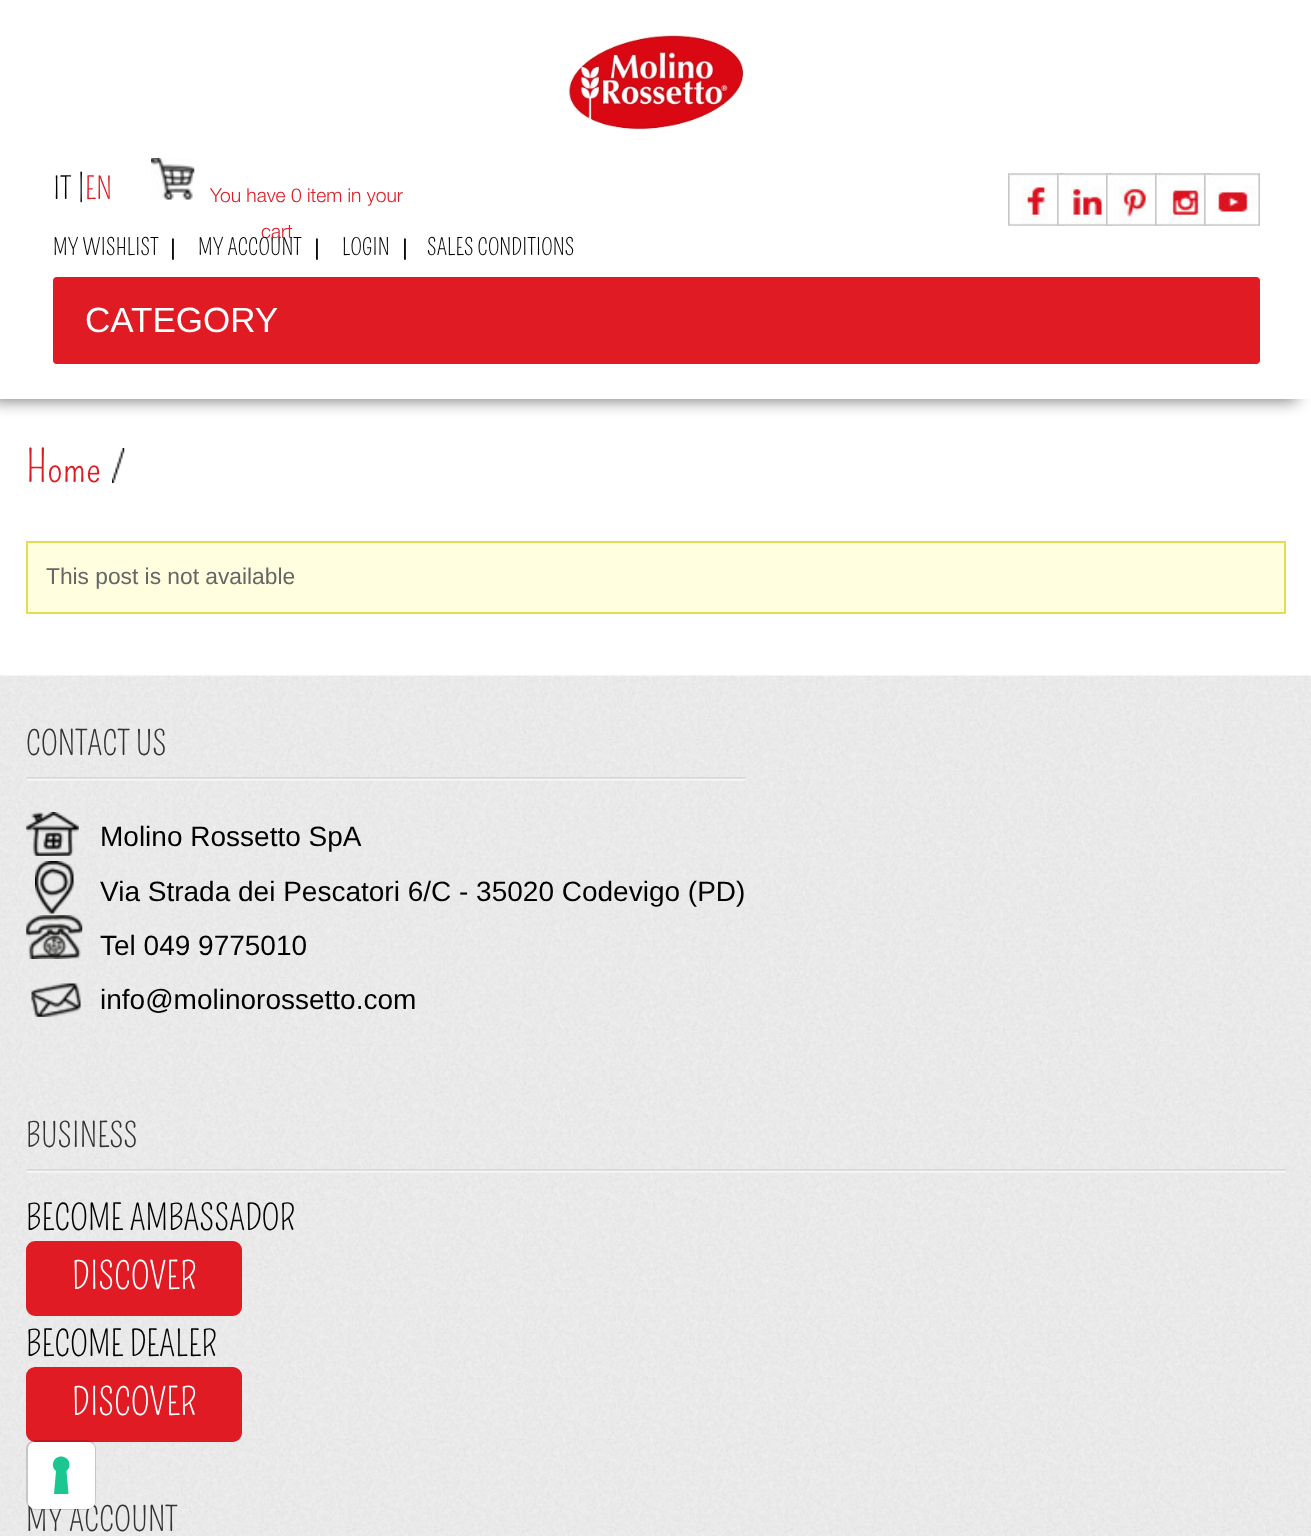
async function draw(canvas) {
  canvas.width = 1311;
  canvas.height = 1536;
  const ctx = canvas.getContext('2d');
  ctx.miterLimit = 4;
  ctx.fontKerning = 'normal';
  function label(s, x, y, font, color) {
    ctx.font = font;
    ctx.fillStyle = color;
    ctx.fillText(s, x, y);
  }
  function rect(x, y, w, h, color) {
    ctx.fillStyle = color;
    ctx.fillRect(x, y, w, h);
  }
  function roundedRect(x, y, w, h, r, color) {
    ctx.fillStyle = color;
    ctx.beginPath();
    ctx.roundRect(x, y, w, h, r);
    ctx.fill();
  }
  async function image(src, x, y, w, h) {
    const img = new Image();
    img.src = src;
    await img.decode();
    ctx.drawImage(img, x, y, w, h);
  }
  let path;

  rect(0, 0, 1311, 1536, '#fff');
  ctx.save();
  ctx.beginPath();
  ctx.rect(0, 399, 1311, 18);
  ctx.clip();
  ctx.fillStyle = '#808080';
  ctx.filter = 'blur(8px)';
  ctx.beginPath();
  ctx.rect(-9, 9, 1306, 392);
  ctx.fill();
  ctx.filter = 'none';
  ctx.restore();
  await image('assets/img1.png', 568, 35, 176, 95);
  label('IT', 53, 199, '30px Pompiere', '#000');
  label('|', 78, 199, '30px Pompiere', '#000');
  label('EN', 85, 199, '30px Pompiere', '#e01b24');
  await image('assets/img2.png', 151, 158, 44, 42);
  label('You have 0 item in your', 210, 202, '300 19.25px Helvetica Neue', '#e01b24');
  label('cart', 261, 238, '300 19.25px Helvetica Neue', '#e01b24');
  await image('assets/img3.png', 1008, 173, 56, 53);
  await image('assets/img4.png', 1057, 173, 56, 53);
  await image('assets/img5.png', 1106, 173, 56, 53);
  await image('assets/img6.png', 1155, 173, 56, 53);
  await image('assets/img7.png', 1204, 173, 56, 53);
  label('MY WISHLIST', 53, 255, '22.75px Pompiere', '#000');
  label('|', 170, 255, '22.75px Liberation Sans', '#000');
  label('MY ACCOUNT', 198, 255, '22.75px Pompiere', '#000');
  label('|', 314, 255, '22.75px Liberation Sans', '#000');
  label('LOGIN', 342, 255, '22.75px Pompiere', '#000');
  label('|', 402, 255, '22.75px Liberation Sans', '#000');
  label('SALES CONDITIONS', 427, 255, '22.75px Pompiere', '#000');
  roundedRect(53, 277, 1207, 87, 4, '#e01b24');
  label('CATEGORY', 85, 332, '35px Liberation Sans', '#fff');
  label('Home', 26, 482, '44px Pompiere', '#e01b24');
  await image('assets/img8.png', 112, 448, 13, 35);
  ctx.fillStyle = '#ffffe0';
  ctx.beginPath();
  ctx.rect(27, 542, 1258, 71);
  ctx.fill();
  ctx.strokeStyle = '#e6db55';
  ctx.lineWidth = 2;
  ctx.stroke();
  label('This post is not available', 46, 584, '22.75px Liberation Sans', '#666');
  await image('assets/img9.png', 0, 675, 1311, 861);
  await image('assets/img10.png', 26, 777, 720, 4);
  label('CONTACT US', 26, 755, '33.25px Pompiere', '#333');
  await image('assets/img11.png', 26, 812, 53, 44);
  label('Molino Rossetto SpA', 100, 846, '28px Liberation Sans', '#000');
  await image('assets/img12.png', 35, 861, 39, 53);
  label('Via Strada dei Pescatori 6/C - 35020 Codevigo (PD)', 100, 901, '28px Liberation Sans', '#000');
  await image('assets/img13.png', 26, 915, 57, 44);
  label('Tel 049 9775010', 100, 955, '28px Liberation Sans', '#000');
  await image('assets/img14.png', 31, 983, 50, 34);
  label('info@molinorossetto.com', 100, 1009, '28px Liberation Sans', '#000');
  await image('assets/img15.png', 26, 1169, 1261, 4);
  label('BUSINESS', 26, 1147, '33.25px Pompiere', '#333');
  label('BECOME AMBASSADOR', 26, 1230, '35px Pompiere', '#000');
  ctx.fillStyle = '#e01b24';
  ctx.beginPath();
  ctx.roundRect(27, 1242, 214, 73, 8);
  ctx.fill();
  ctx.strokeStyle = '#e01b24';
  ctx.stroke();
  label('DISCOVER', 72, 1289, '37px Pompiere', '#fff');
  label('BECOME DEALER', 26, 1356, '35px Pompiere', '#000');
  ctx.fillStyle = '#e01b24';
  ctx.beginPath();
  ctx.roundRect(27, 1368, 214, 73, 8);
  ctx.fill();
  ctx.stroke();
  label('DISCOVER', 72, 1415, '37px Pompiere', '#fff');
  label('MY ACCOUNT', 26, 1531, '33.25px Pompiere', '#333');
  ctx.beginPath();
  ctx.roundRect(27, 1441, 68, 68, 8);
  ctx.strokeStyle = '#00000026';
  ctx.stroke();
  roundedRect(28, 1442, 67, 67, 7, '#fff');
  ctx.fillStyle = '#1cc691';
  path = new Path2D('M61 1456.5C69 1456.5 72.5 1466 66.5 1471L68.5 1494H54L56 1471C50 1466 53.5 1456.5 61 1456.5Z');
  ctx.fill(path, 'evenodd');
}

draw(document.querySelector('canvas'));
